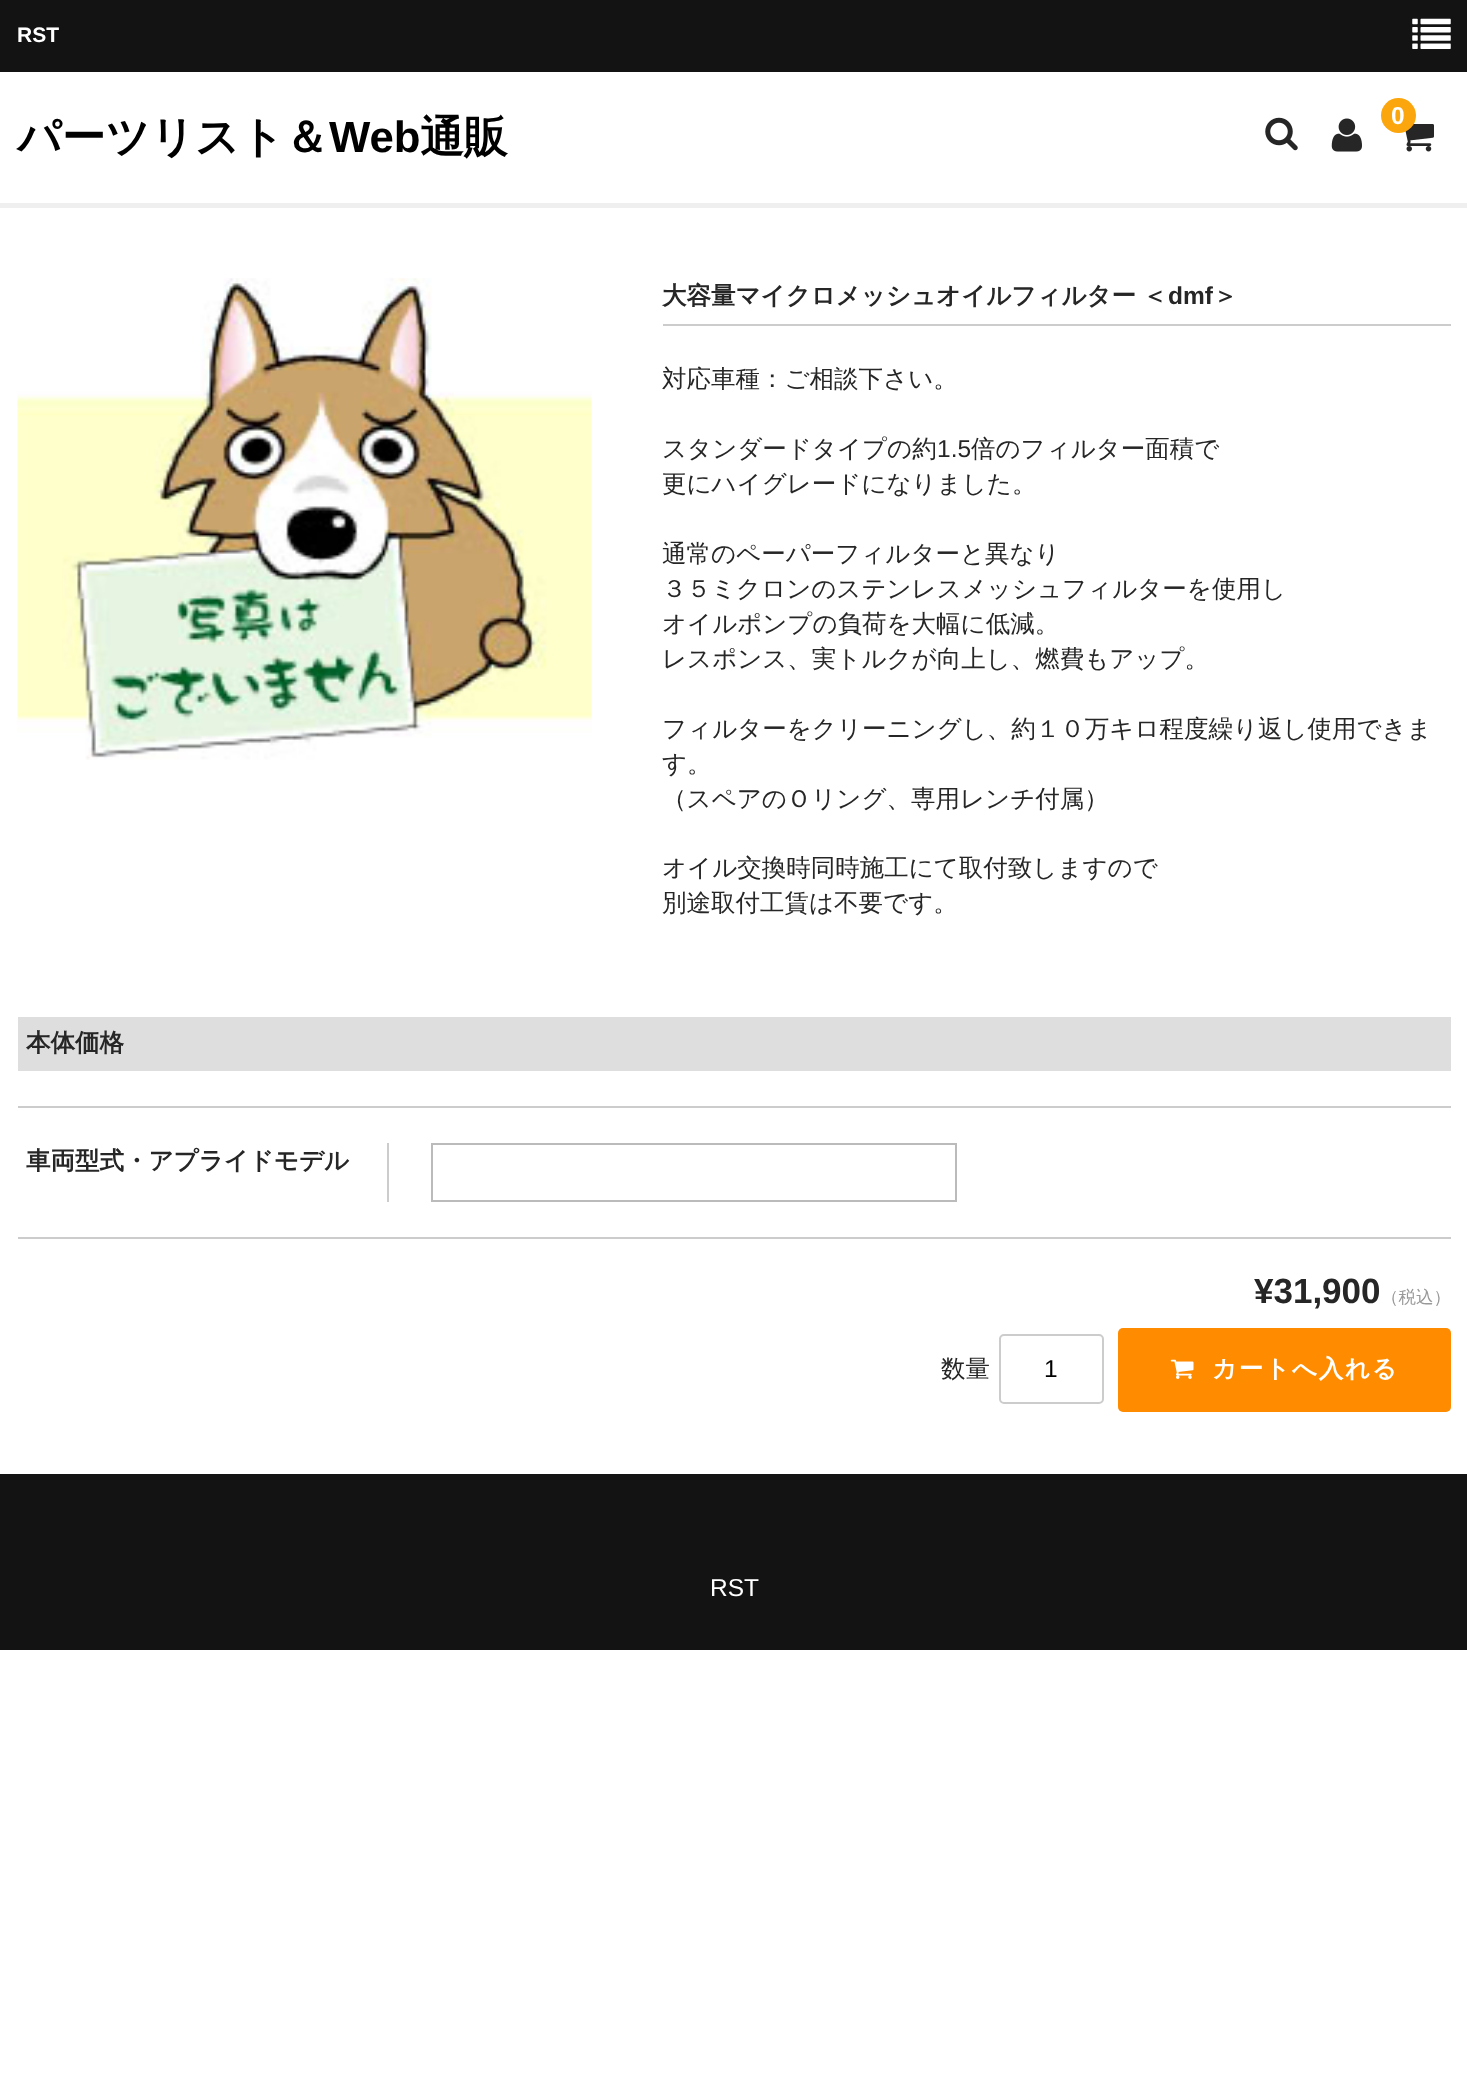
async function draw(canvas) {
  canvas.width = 1467;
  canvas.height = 2078;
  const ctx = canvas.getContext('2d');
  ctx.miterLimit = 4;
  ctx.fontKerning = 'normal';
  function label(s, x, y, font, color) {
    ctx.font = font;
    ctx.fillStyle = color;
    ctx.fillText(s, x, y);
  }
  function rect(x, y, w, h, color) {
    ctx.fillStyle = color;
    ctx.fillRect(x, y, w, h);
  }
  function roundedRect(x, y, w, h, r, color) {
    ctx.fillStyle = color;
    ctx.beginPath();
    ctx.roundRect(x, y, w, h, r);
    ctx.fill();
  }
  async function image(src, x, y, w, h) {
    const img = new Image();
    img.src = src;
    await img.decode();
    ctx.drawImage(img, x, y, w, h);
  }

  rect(0, 0, 1467, 2078, '#fff');
  rect(0, 203, 1467, 5, '#efefef');
  rect(0, 0, 1467, 72, '#131313');
  label('RST', 17, 42, 'bold 21px Liberation Sans', '#fff');
  label('パーツリスト＆', 17, 152, 'bold 43.75px WenQuanYi Zen Hei', '#000');
  label('Web', 329, 152, 'bold 43.75px Liberation Sans', '#000');
  label('通販', 420, 152, 'bold 43.75px WenQuanYi Zen Hei', '#000');
  await image('assets/img1.png', 1265, 117, 33, 34);
  await image('assets/img2.png', 1331, 118, 31, 34);
  await image('assets/img3.png', 1405, 124, 29, 28);
  ctx.fillStyle = '#fba60d';
  ctx.beginPath();
  ctx.arc(1398.5, 115.5, 17.5, 0, 2 * Math.PI);
  ctx.fill();
  label('0', 1391, 124, 'bold 24.5px Liberation Sans', '#fff');
  await image('assets/img4.png', 1412, 18, 39, 31);
  await image('assets/img5.png', 17, 278, 575, 482);
  ctx.wordSpacing = '-1px';
  label('大容量マイクロメッシュオイルフィルター ＜', 662, 304, 'bold 24.5px WenQuanYi Zen Hei', '#262626');
  ctx.wordSpacing = '0px';
  label('dmf', 1168, 304, 'bold 24.5px Liberation Sans', '#262626');
  label('＞', 1213, 304, 'bold 24.5px WenQuanYi Zen Hei', '#262626');
  rect(663, 324, 788, 2, '#ccc');
  label('対応車種：ご相談下さい。', 662, 387, '500 24.5px WenQuanYi Zen Hei', '#262626');
  label('スタンダードタイプの約', 662, 457, '500 24.5px WenQuanYi Zen Hei', '#262626');
  label('1.5', 937, 457, '24.5px Liberation Sans', '#262626');
  label('倍のフィルター面積で', 971, 457, '500 24.5px WenQuanYi Zen Hei', '#262626');
  label('更にハイグレードになりました。', 662, 492, '500 24.5px WenQuanYi Zen Hei', '#262626');
  label('通常のペーパーフィルターと異なり', 662, 562, '500 24.5px WenQuanYi Zen Hei', '#262626');
  label('３５ミクロンのステンレスメッシュフィルターを使用し', 662, 597, '500 24.5px WenQuanYi Zen Hei', '#262626');
  label('オイルポンプの負荷を大幅に低減。', 662, 632, '500 24.5px WenQuanYi Zen Hei', '#262626');
  label('レスポンス、実トルクが向上し、燃費もアップ。', 662, 667, '500 24.5px WenQuanYi Zen Hei', '#262626');
  label('フィルターをクリーニングし、約１０万キロ程度繰り返し使用できま', 662, 737, '500 24.5px WenQuanYi Zen Hei', '#262626');
  label('す。', 662, 772, '500 24.5px WenQuanYi Zen Hei', '#262626');
  label('（スペアのＯリング、専用レンチ付属）', 662, 807, '500 24.5px WenQuanYi Zen Hei', '#262626');
  label('オイル交換時同時施工にて取付致しますので', 662, 876, '500 24.5px WenQuanYi Zen Hei', '#262626');
  label('別途取付工賃は不要です。', 662, 911, '500 24.5px WenQuanYi Zen Hei', '#262626');
  rect(18, 1017, 1433, 54, '#dedede');
  label('本体価格', 26, 1051, 'bold 24.5px WenQuanYi Zen Hei', '#262626');
  rect(18, 1106, 1433, 2, '#ccc');
  rect(18, 1237, 1433, 2, '#ccc');
  label('車両型式・アプライドモデル', 26, 1169, 'bold 24.5px WenQuanYi Zen Hei', '#262626');
  rect(387, 1143, 2, 59, '#ccc');
  ctx.strokeStyle = '#bbb';
  ctx.lineWidth = 2;
  ctx.strokeRect(432, 1144, 524, 57);
  label('¥31,900', 1254, 1303, 'bold 35px Liberation Sans', '#262626');
  label('（税込）', 1381, 1303, '500 17.5px WenQuanYi Zen Hei', '#999');
  label('数量', 941, 1377, '500 24.5px WenQuanYi Zen Hei', '#262626');
  ctx.beginPath();
  ctx.roundRect(1000, 1335, 103, 68, 4);
  ctx.strokeStyle = '#ccc';
  ctx.stroke();
  label('1', 1044, 1377, '24.5px Liberation Sans', '#000');
  roundedRect(1118, 1328, 333, 84, 5, '#ff8c00');
  await image('assets/img6.png', 1170, 1359, 24, 20);
  ctx.letterSpacing = '1.75px';
  label('カートへ入れる', 1212, 1377, 'bold 24.5px WenQuanYi Zen Hei', '#fff');
  rect(0, 1474, 1467, 176, '#131313');
  ctx.letterSpacing = '0px';
  label('RST', 710, 1596, '24.5px Liberation Sans', '#fff');
}

draw(document.querySelector('canvas'));
